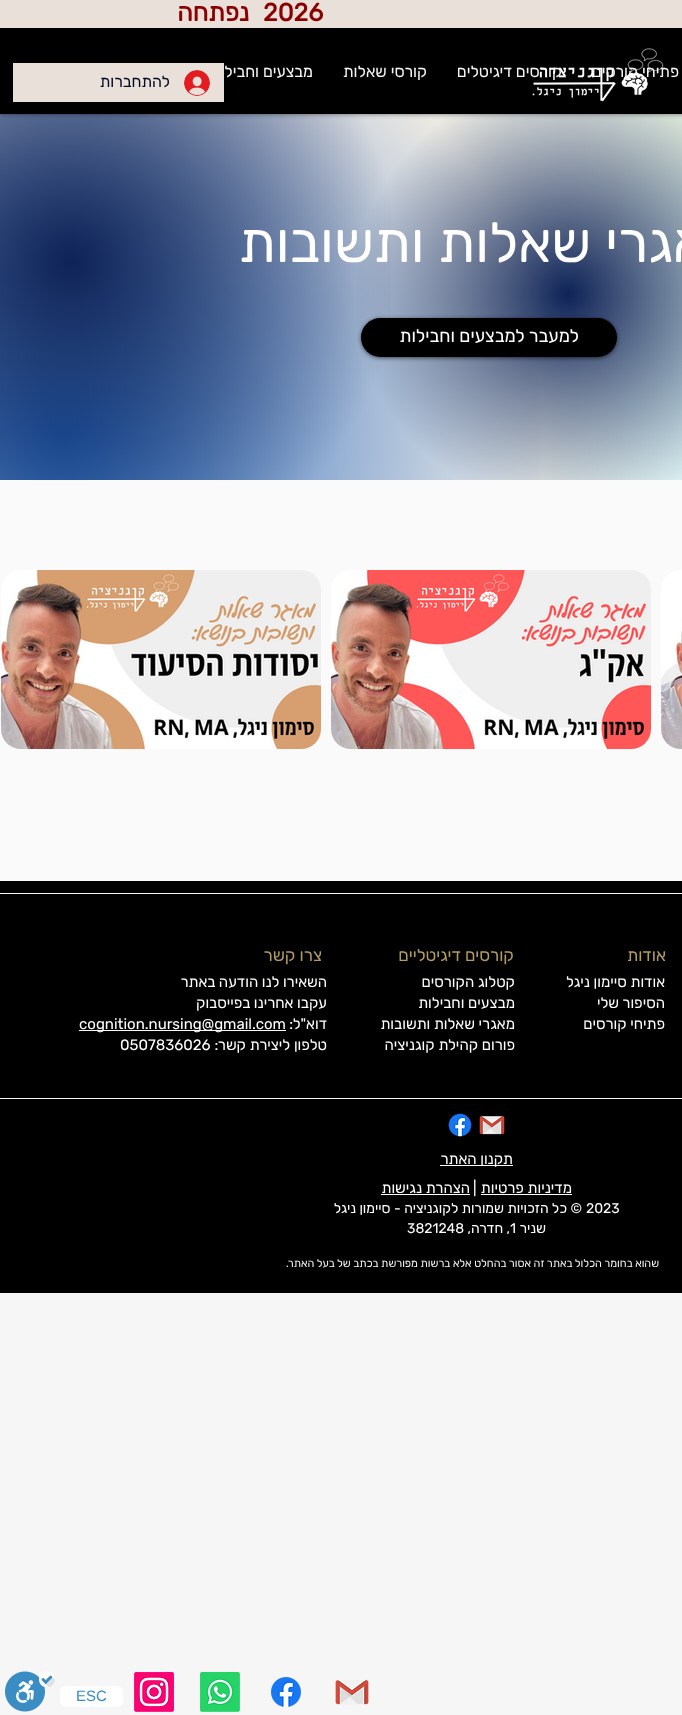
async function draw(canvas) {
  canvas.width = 682;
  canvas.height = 1715;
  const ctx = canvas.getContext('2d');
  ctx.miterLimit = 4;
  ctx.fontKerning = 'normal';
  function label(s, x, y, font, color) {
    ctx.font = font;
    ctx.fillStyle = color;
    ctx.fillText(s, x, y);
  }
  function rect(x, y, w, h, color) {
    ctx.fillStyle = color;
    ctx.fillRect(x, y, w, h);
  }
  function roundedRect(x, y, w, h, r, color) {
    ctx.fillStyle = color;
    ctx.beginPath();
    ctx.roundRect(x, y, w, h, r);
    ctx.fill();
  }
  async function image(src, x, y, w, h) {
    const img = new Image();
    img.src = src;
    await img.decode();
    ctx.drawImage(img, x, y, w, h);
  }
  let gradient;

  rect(0, 0, 682, 1715, '#f6f6f6');
  gradient = ctx.createRadialGradient(918, 156, 0, 918, 156, 974);
  gradient.addColorStop(0, '#d0e0cd');
  gradient.addColorStop(0.7, '#f7f7f7');
  ctx.fillStyle = gradient;
  ctx.fillRect(293, 114, 389, 366);
  gradient = ctx.createRadialGradient(60, 160, 0, 60, 160, 974);
  gradient.addColorStop(0, '#eae0da');
  gradient.addColorStop(0.7, '#eae0da00');
  ctx.fillStyle = gradient;
  ctx.fillRect(0, 114, 624, 366);
  gradient = ctx.createRadialGradient(64, 436, 0, 64, 436, 971);
  gradient.addColorStop(0, '#2061b7fc');
  gradient.addColorStop(0.5, '#2061b700');
  ctx.fillStyle = gradient;
  ctx.fillRect(0, 114, 540, 366);
  gradient = ctx.createRadialGradient(925, 442, 0, 925, 442, 981);
  gradient.addColorStop(0, '#bde9fb');
  gradient.addColorStop(0.4, '#bde9fb00');
  ctx.fillStyle = gradient;
  ctx.fillRect(552, 166, 130, 314);
  gradient = ctx.createRadialGradient(568, 294, 0, 568, 294, 598);
  gradient.addColorStop(0, '#0e2357');
  gradient.addColorStop(0.36, '#0e235700');
  ctx.fillStyle = gradient;
  ctx.fillRect(357, 114, 325, 366);
  gradient = ctx.createRadialGradient(71, 262, 0, 71, 262, 935);
  gradient.addColorStop(0, '#0e2357');
  gradient.addColorStop(0.35, '#0e235700');
  ctx.fillStyle = gradient;
  ctx.fillRect(0, 114, 391, 366);
  ctx.fillStyle = '#00000080';
  ctx.filter = 'blur(2.5px)';
  ctx.beginPath();
  ctx.rect(0, 0, 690, 114);
  ctx.fill();
  ctx.filter = 'none';
  rect(0, 28, 682, 86, '#000');
  rect(0, 0, 682, 28, '#eae0da');
  label('2026', 263, 21, 'bold 25px Rubik', '#8b0000');
  ctx.direction = 'rtl';
  label('נפתחה', 249, 21, 'bold 25px Rubik', '#8b0000');
  label('פתיחי קורסים', 679, 77, '16px Rubik', '#f6f6f6');
  label('קורסים דיגיטלים', 562, 77, '16px Rubik', '#f6f6f6');
  label('קורסי שאלות', 427, 77, '16px Rubik', '#f6f6f6');
  label('מבצעים וחבילות', 313, 77, '16px Rubik', '#f6f6f6');
  await image('assets/img1.png', 532, 48, 132, 54);
  rect(13, 63, 211, 39, '#eae0da');
  await image('assets/img2.png', 184, 70, 26, 26);
  label('להתחברות', 170, 87, '16px Rubik', '#040b24');
  label('מאגרי שאלות ותשובות', 741, 262, '56px Rubik', '#fff');
  ctx.fillStyle = '#00000099';
  ctx.filter = 'blur(2px)';
  ctx.beginPath();
  ctx.roundRect(361, 319, 256, 39, 19.5);
  ctx.fill();
  ctx.filter = 'none';
  roundedRect(361, 318, 256, 39, 19.5, '#000');
  label('למעבר למבצעים וחבילות', 579, 342, '18px Rubik', '#fff');
  rect(0, 480, 682, 401, '#fafafa');
  await image('assets/img3.png', 661, 570, 21, 179);
  await image('assets/img4.png', 331, 570, 320, 179);
  await image('assets/img5.png', 1, 570, 320, 179);
  rect(0, 881, 682, 412, '#000');
  rect(0, 893, 682, 1, '#f6f6f6');
  label('אודות', 666, 961, '17px Rubik', '#b39c60');
  label('קורסים דיגיטליים', 514, 961, '17px Rubik', '#b39c60');
  label('צרו קשר', 322, 961, '17px Rubik', '#b39c60');
  label('אודות סיימון ניגל', 665, 987, '15px Rubik', '#fff');
  label('הסיפור שלי', 665, 1008, '15px Rubik', '#fff');
  label('פתיחי קורסים', 665, 1029, '15px Rubik', '#fff');
  label('קטלוג הקורסים', 515, 987, '15px Rubik', '#fff');
  label('מבצעים וחבילות', 515, 1008, '15px Rubik', '#fff');
  label('מאגרי שאלות ותשובות', 515, 1029, '15px Rubik', '#fff');
  label('פורום קהילת קוגניציה', 515, 1050, '15px Rubik', '#fff');
  label('השאירו לנו הודעה באתר', 327, 987, '15px Rubik', '#fff');
  label('עקבו אחרינו בפייסבוק', 327, 1008, '15px Rubik', '#fff');
  label('דוא"ל:', 327, 1029, '15px Rubik', '#fff');
  rect(79, 1030, 207, 1, '#fff');
  ctx.direction = 'ltr';
  label('cognition.nursing@gmail.com', 79, 1029, '15px Rubik', '#fff');
  ctx.direction = 'rtl';
  label('טלפון ליצירת קשר:', 327, 1050, '15px Rubik', '#fff');
  ctx.direction = 'ltr';
  label('0507836026', 120, 1050, '15px Rubik', '#fff');
  rect(0, 1098, 682, 1, '#f6f6f6');
  await image('assets/img6.png', 479, 1116, 26, 19);
  await image('assets/img7.png', 448, 1113, 24, 24);
  rect(440, 1165, 73, 1, '#fff');
  ctx.direction = 'rtl';
  label('תקנון האתר', 513, 1164, '15px Rubik', '#fff');
  label('מדיניות פרטיות', 572, 1193, '15px Rubik', '#fff');
  rect(481, 1194, 91, 1, '#fff');
  ctx.direction = 'ltr';
  label('|', 473, 1193, '15px Rubik', '#fff');
  ctx.direction = 'rtl';
  label('הצהרת נגישות', 470, 1193, '15px Rubik', '#fff');
  rect(381, 1194, 89, 1, '#fff');
  ctx.direction = 'ltr';
  label('2023', 586, 1213, '14px Rubik', '#fff');
  ctx.direction = 'rtl';
  label('© כל הזכויות שמורות ל', 582, 1213, '14px Rubik', '#fff');
  label('קוגניציה - סיימון ניגל', 451, 1213, '14px Rubik', '#fff');
  label('שניר', 546, 1233, '14px Rubik', '#fff');
  ctx.direction = 'ltr';
  label('1', 510, 1233, '14px Rubik', '#fff');
  ctx.direction = 'rtl';
  label(', חדרה,', 510, 1233, '14px Rubik', '#fff');
  ctx.direction = 'ltr';
  label('3821248', 407, 1233, '14px Rubik', '#fff');
  ctx.direction = 'rtl';
  label('שהוא בחומר הכלול באתר זה אסור בהחלט אלא ברשות מפורשת בכתב של בעל האתר.', 659, 1267, '11px Rubik', '#f6f6f6');
  await image('assets/img8.png', 335, 1680, 34, 25);
  await image('assets/img9.png', 270, 1676, 32, 31);
  await image('assets/img10.png', 200, 1672, 40, 40);
  await image('assets/img11.png', 134, 1672, 40, 40);
  roundedRect(60, 1686, 63, 21, 6, '#fff');
  ctx.direction = 'ltr';
  label('ESC', 76, 1701, '15px Liberation Sans', '#3a8dc2');
  await image('assets/img12.png', 5, 1671, 50, 41);
}

draw(document.querySelector('canvas'));
